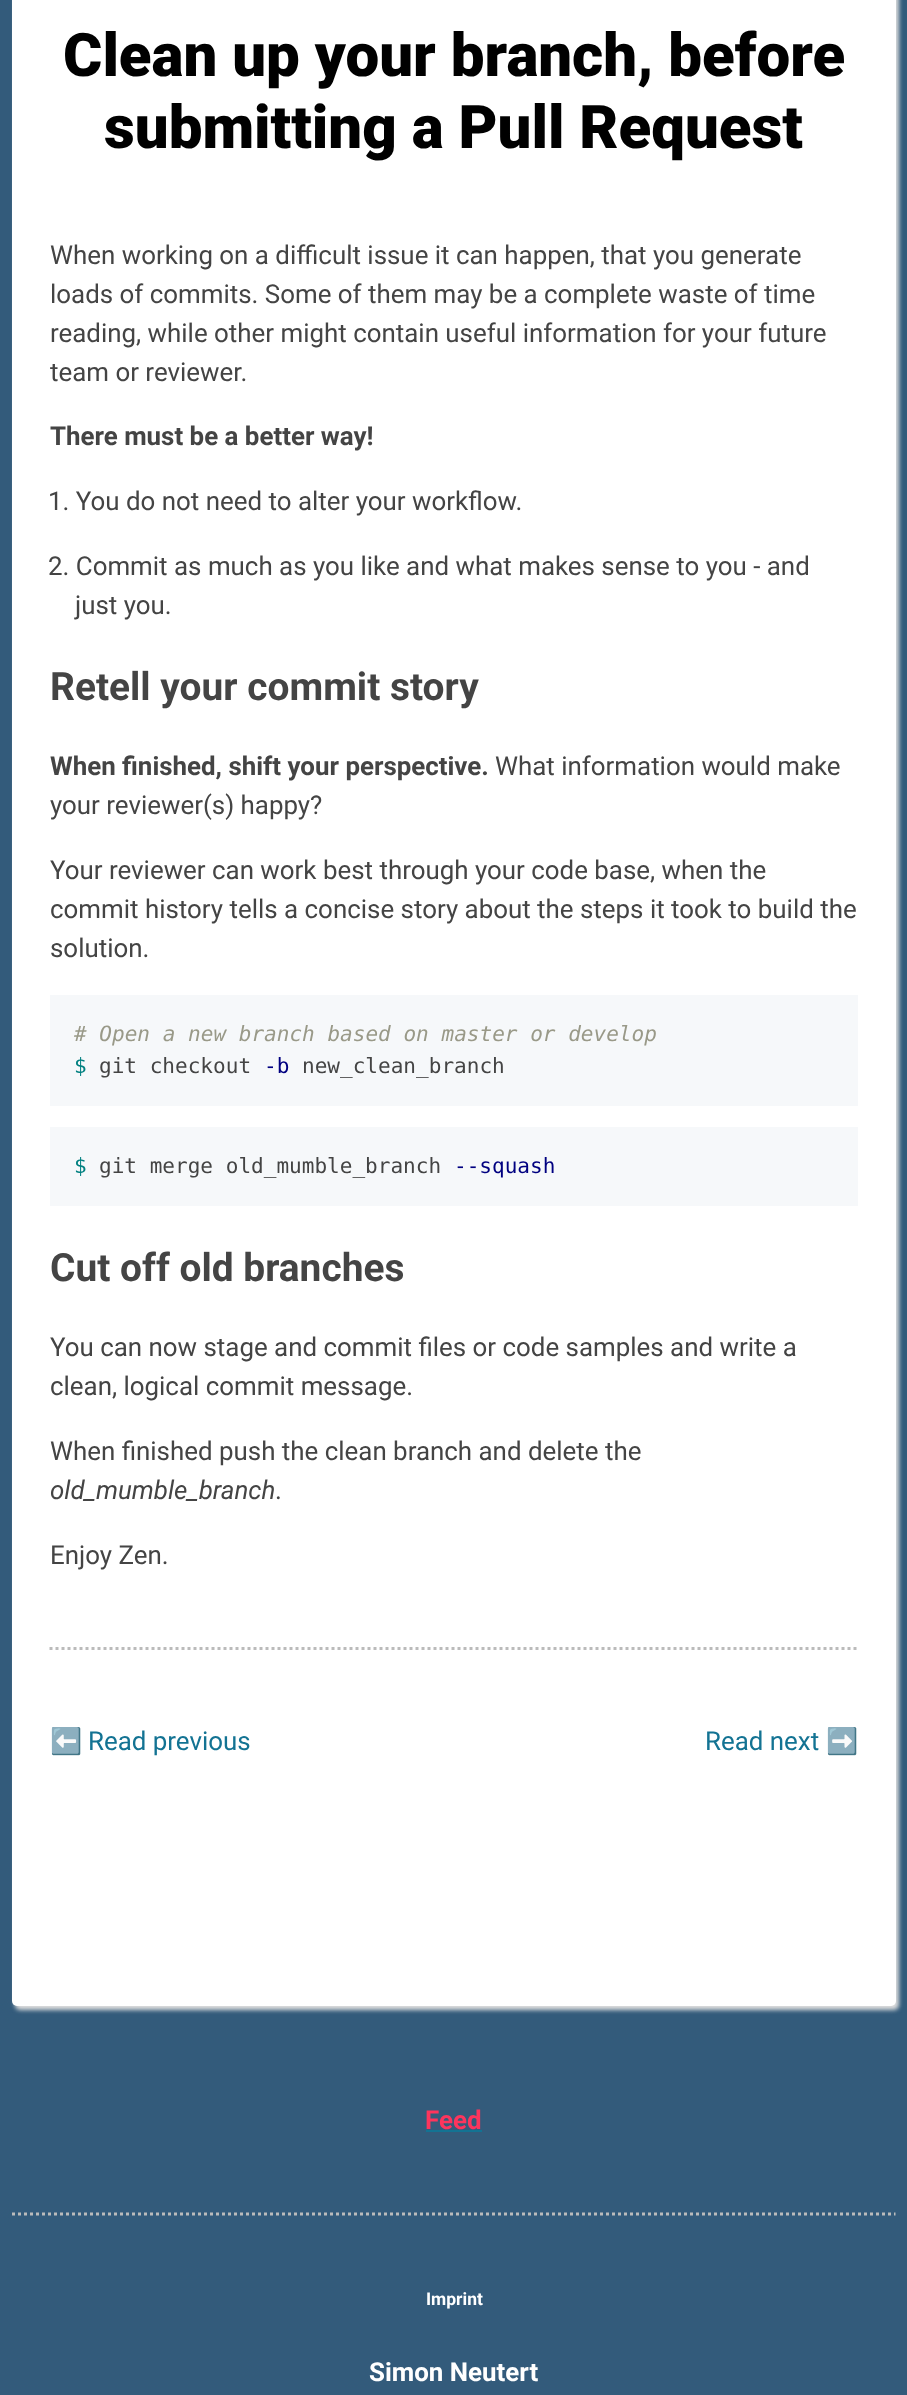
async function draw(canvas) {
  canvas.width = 907;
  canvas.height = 2395;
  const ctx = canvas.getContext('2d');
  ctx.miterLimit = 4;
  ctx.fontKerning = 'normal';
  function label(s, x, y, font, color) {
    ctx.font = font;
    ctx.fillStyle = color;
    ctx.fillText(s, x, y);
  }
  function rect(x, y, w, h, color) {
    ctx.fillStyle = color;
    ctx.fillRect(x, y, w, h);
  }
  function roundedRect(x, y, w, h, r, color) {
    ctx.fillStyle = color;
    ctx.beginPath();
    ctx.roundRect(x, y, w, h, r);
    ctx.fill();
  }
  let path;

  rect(0, 0, 907, 2395, '#335b7b');
  ctx.fillStyle = '#ddd';
  ctx.filter = 'blur(2px)';
  ctx.beginPath();
  ctx.roundRect(15, -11, 884, 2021, 5);
  ctx.fill();
  ctx.filter = 'none';
  roundedRect(12, -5, 884, 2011, 5, '#fff');
  label('Clean up your branch, before', 63, 76, '900 60px Roboto', '#000');
  label('submitting a Pull Request', 104, 148, '900 60px Roboto', '#000');
  label('When working on a difficult issue it can happen, that you generate', 50, 264, '25.9px Roboto', '#444');
  label('loads of commits. Some of them may be a complete waste of time', 50, 303, '25.9px Roboto', '#444');
  label('reading, while other might contain useful information for your future', 50, 342, '25.9px Roboto', '#444');
  label('team or reviewer.', 50, 381, '25.9px Roboto', '#444');
  label('There must be a better way!', 50, 445, 'bold 25.9px Roboto', '#444');
  label('1. You do not need to alter your workflow.', 48, 510, '25.9px Roboto', '#444');
  label('2. Commit as much as you like and what makes sense to you - and', 48, 575, '25.9px Roboto', '#444');
  label('just you.', 75, 614, '25.9px Roboto', '#444');
  label('Retell your commit story', 50, 700, 'bold 38.9px Roboto', '#444');
  label('When finished, shift your perspective.', 50, 775, 'bold 25.9px Roboto', '#444');
  label('What information would make', 495, 775, '25.9px Roboto', '#444');
  label('your reviewer(s) happy?', 50, 814, '25.9px Roboto', '#444');
  label('Your reviewer can work best through your code base, when the', 50, 879, '25.9px Roboto', '#444');
  label('commit history tells a concise story about the steps it took to build the', 50, 918, '25.9px Roboto', '#444');
  label('solution.', 50, 957, '25.9px Roboto', '#444');
  rect(50, 995, 808, 111, '#f6f8fa');
  label('# Open a new branch based on master or develop', 74, 1041, 'italic 21.05px DejaVu Sans Mono', '#998');
  label('$', 74, 1073, '21.05px DejaVu Sans Mono', '#008080');
  label('git checkout', 99, 1073, '21.05px DejaVu Sans Mono', '#444');
  label('-b', 264, 1073, '21.05px DejaVu Sans Mono', '#000080');
  label('new_clean_branch', 302, 1073, '21.05px DejaVu Sans Mono', '#444');
  rect(50, 1127, 808, 79, '#f6f8fa');
  label('$', 74, 1173, '21.05px DejaVu Sans Mono', '#008080');
  label('git merge old_mumble_branch', 99, 1173, '21.05px DejaVu Sans Mono', '#444');
  label('--squash', 454, 1173, '21.05px DejaVu Sans Mono', '#000080');
  label('Cut off old branches', 50, 1281, 'bold 38.9px Roboto', '#444');
  label('You can now stage and commit files or code samples and write a', 50, 1356, '25.9px Roboto', '#444');
  label('clean, logical commit message.', 50, 1395, '25.9px Roboto', '#444');
  label('When finished push the clean branch and delete the', 50, 1460, '25.9px Roboto', '#444');
  label('old_mumble_branch', 50, 1499, 'italic 25.9px Roboto', '#444');
  label('.', 275, 1499, '25.9px Roboto', '#444');
  label('Enjoy Zen.', 50, 1564, '25.9px Roboto', '#444');
  path = new Path2D('M49.5 1648.5H858');
  ctx.strokeStyle = '#bbb';
  ctx.lineWidth = 3;
  ctx.setLineDash([3, 3]);
  ctx.stroke(path);
  label('⬅️', 50, 1750, '25.9px Noto Color Emoji', '#137393');
  label('Read previous', 88, 1750, '25.9px Roboto', '#137393');
  label('Read next', 705, 1750, '25.9px Roboto', '#137393');
  label('➡️', 826, 1750, '25.9px Noto Color Emoji', '#137393');
  label('Feed', 425, 2129, 'bold 25.9px Roboto', '#fd355d');
  rect(426, 2130, 56, 2, '#137393');
  path = new Path2D('M12 2214H895.5');
  ctx.stroke(path);
  label('Imprint', 426, 2305, 'bold 17.5px Roboto', '#fff');
  label('Simon Neutert', 369, 2381, 'bold 25.9px Roboto', '#fff');
}

draw(document.querySelector('canvas'));
